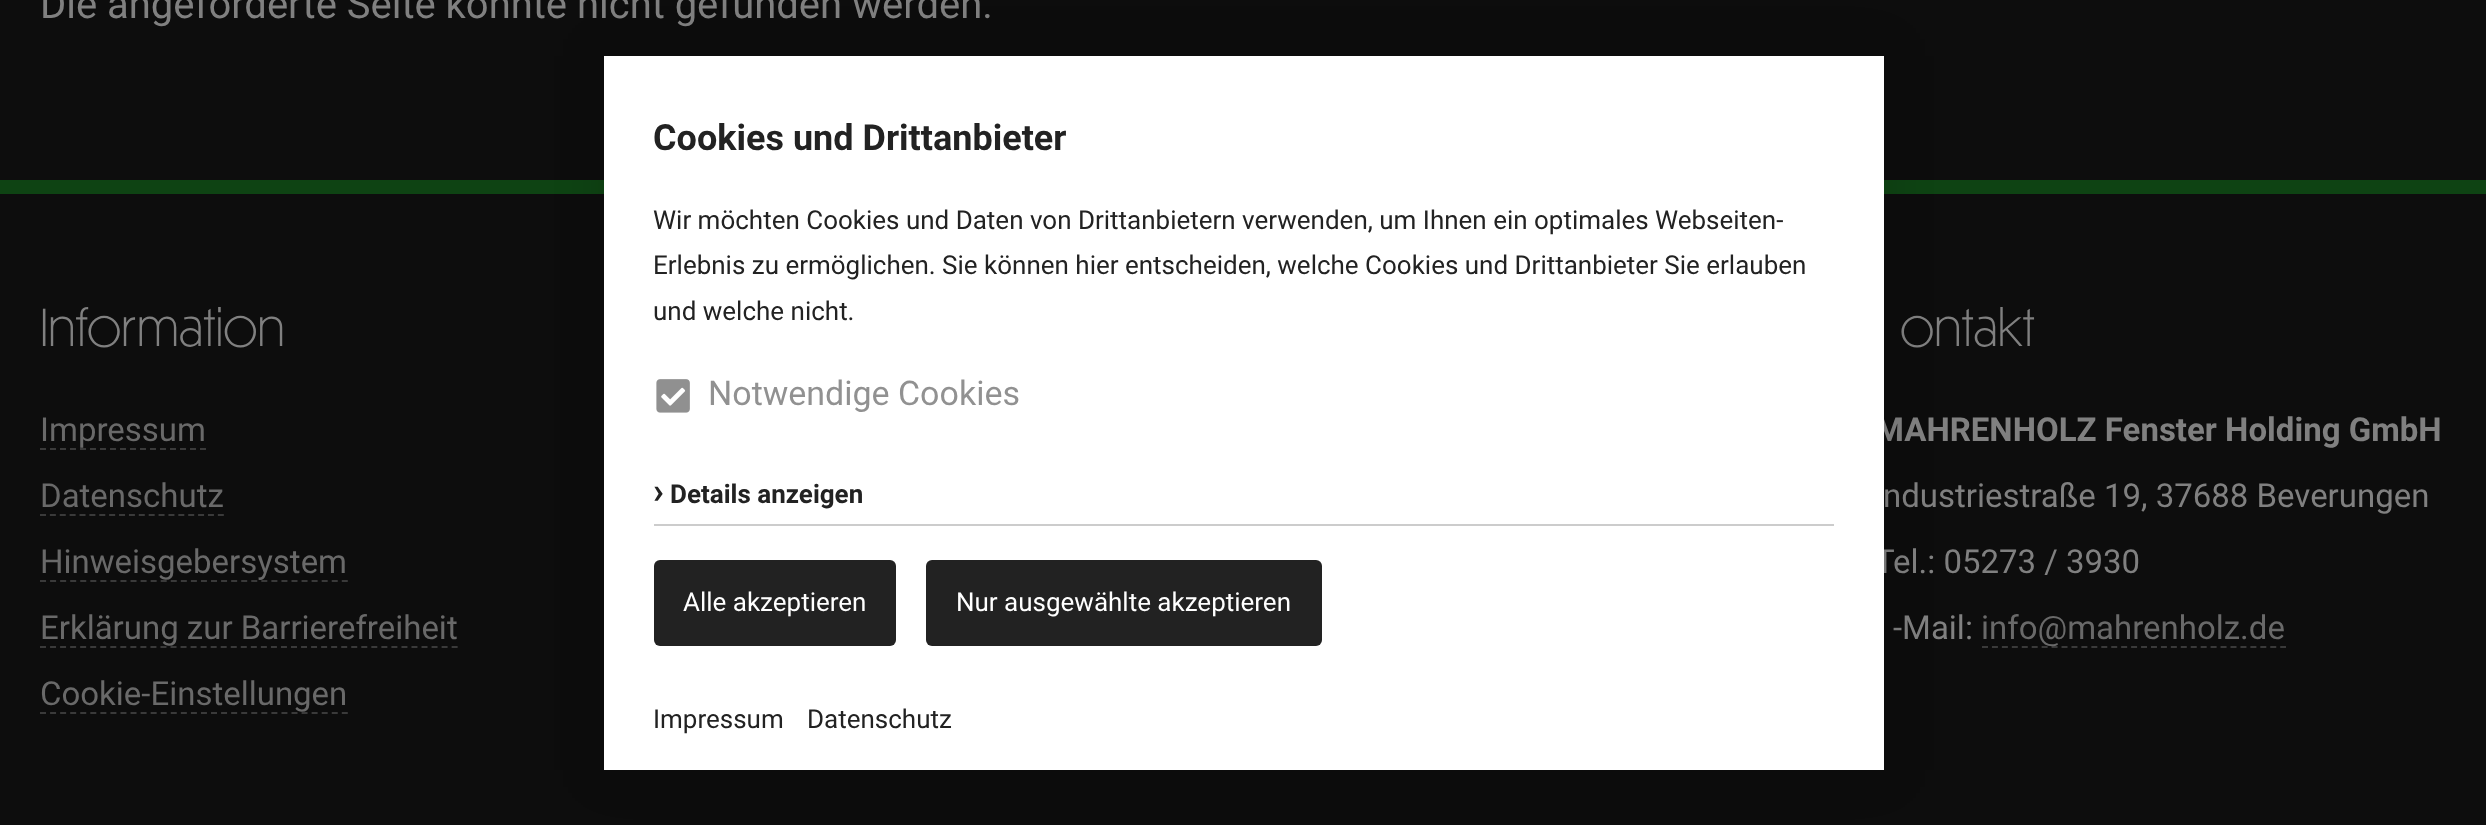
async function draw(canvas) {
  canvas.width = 2486;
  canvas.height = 825;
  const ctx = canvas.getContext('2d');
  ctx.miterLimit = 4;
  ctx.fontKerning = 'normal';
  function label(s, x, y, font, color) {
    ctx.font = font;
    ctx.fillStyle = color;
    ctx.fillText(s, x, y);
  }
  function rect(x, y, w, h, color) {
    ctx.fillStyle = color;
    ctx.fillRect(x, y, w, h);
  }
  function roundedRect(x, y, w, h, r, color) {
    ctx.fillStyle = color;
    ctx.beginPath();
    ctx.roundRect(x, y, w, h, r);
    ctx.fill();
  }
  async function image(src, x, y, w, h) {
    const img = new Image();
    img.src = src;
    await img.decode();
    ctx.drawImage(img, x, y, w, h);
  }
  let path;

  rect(0, 0, 2486, 825, '#0d0d0d');
  label('Die angeforderte Seite konnte nicht gefunden werden.', 40, 18, '40px Roboto', '#808080');
  rect(0, 180, 2486, 14, '#0e4313');
  label('Information', 40, 346, '300 50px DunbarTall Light', '#808080');
  label('Impressum', 40, 441, '33px Roboto', '#696969');
  path = new Path2D('M40 449H206');
  ctx.strokeStyle = '#3a3a3a';
  ctx.lineWidth = 2;
  ctx.setLineDash([6, 4]);
  ctx.stroke(path);
  label('Datenschutz', 40, 507, '33px Roboto', '#696969');
  path = new Path2D('M40 515H224');
  ctx.setLineDash([6, 3.88]);
  ctx.stroke(path);
  path = new Path2D('M40 581H348');
  ctx.setLineDash([6, 4.06]);
  ctx.stroke(path);
  label('Hinweisgebersystem', 40, 573, '33px Roboto', '#696969');
  label('Erklärung zur Barrierefreiheit', 40, 639, '33px Roboto', '#696969');
  path = new Path2D('M40 647H458');
  ctx.setLineDash([6, 4.04]);
  ctx.stroke(path);
  label('Cookie-Einstellungen', 40, 705, '33px Roboto', '#696969');
  path = new Path2D('M40 713H348');
  ctx.setLineDash([6, 4.06]);
  ctx.stroke(path);
  label('ontakt', 1900, 346, '300 50px DunbarTall Light', '#808080');
  label('MAHRENHOLZ Fenster Holding GmbH', 1875, 441, 'bold 33px Roboto', '#808080');
  label('ndustriestraße 19, 37688 Beverungen', 1883, 507, '33px Roboto', '#808080');
  label('Tel.: 05273 / 3930', 1875, 573, '33px Roboto', '#808080');
  label('-Mail:', 1893, 639, '33px Roboto', '#808080');
  path = new Path2D('M1982 647H2286');
  ctx.setLineDash([6, 3.94]);
  ctx.stroke(path);
  label('info@mahrenholz.de', 1981, 639, '33px Roboto', '#696969');
  ctx.fillStyle = '#00000026';
  ctx.filter = 'blur(25px)';
  ctx.beginPath();
  ctx.rect(604, 56, 1280, 714);
  ctx.fill();
  ctx.filter = 'none';
  rect(604, 56, 1280, 714, '#fff');
  label('Cookies und Drittanbieter', 653, 150, 'bold 36px Roboto', '#222');
  label('Wir möchten Cookies und Daten von Drittanbietern verwenden, um Ihnen ein optimales Webseiten-', 653, 229, '26px Roboto', '#222');
  label('Erlebnis zu ermöglichen. Sie können hier entscheiden, welche Cookies und Drittanbieter Sie erlauben', 653, 274, '26px Roboto', '#222');
  label('und welche nicht.', 653, 320, '26px Roboto', '#222');
  await image('assets/img1.png', 656, 379, 34, 34);
  label('Notwendige Cookies', 708, 405, '34px Roboto', '#919191');
  label('›', 653, 503, 'bold 36px Roboto', '#222');
  label('Details anzeigen', 670, 503, 'bold 26px Roboto', '#222');
  rect(654, 524, 1180, 2, '#ccc');
  roundedRect(654, 560, 242, 86, 6, '#222');
  label('Alle akzeptieren', 683, 611, '26px Roboto', '#fff');
  roundedRect(926, 560, 396, 86, 6, '#222');
  label('Nur ausgewählte akzeptieren', 956, 611, '26px Roboto', '#fff');
  label('Impressum', 653, 728, '26px Roboto', '#222');
  label('Datenschutz', 807, 728, '26px Roboto', '#222');
}

draw(document.querySelector('canvas'));
